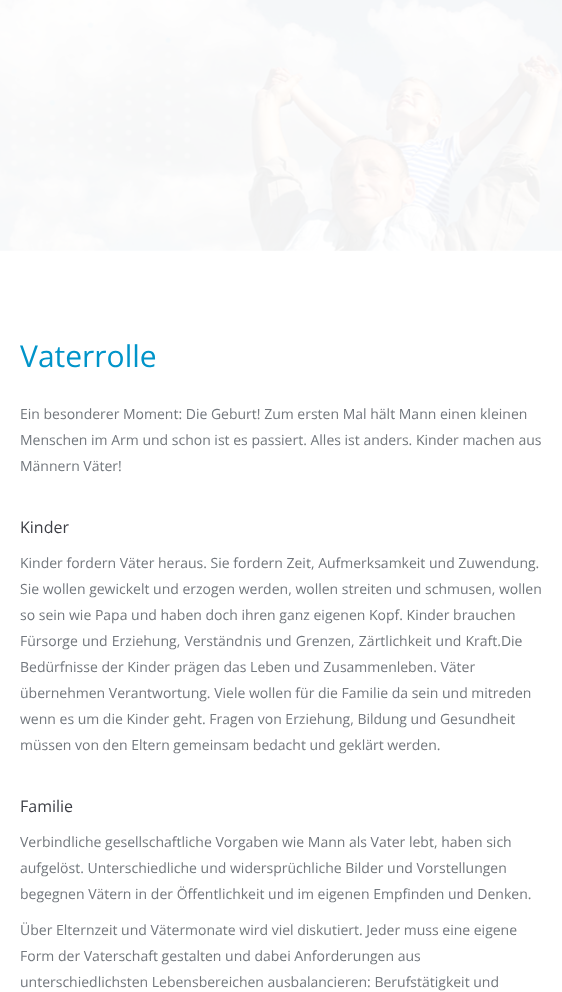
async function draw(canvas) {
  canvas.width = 562;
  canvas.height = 992;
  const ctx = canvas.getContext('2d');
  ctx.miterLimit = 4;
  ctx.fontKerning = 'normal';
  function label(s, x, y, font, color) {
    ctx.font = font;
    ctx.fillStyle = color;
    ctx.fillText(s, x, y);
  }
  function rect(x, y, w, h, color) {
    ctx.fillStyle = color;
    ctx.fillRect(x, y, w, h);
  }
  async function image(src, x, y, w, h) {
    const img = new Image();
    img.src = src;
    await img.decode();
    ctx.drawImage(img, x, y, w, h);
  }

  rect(0, 0, 562, 992, '#fff');
  await image('assets/img1.png', 0, 0, 562, 251);
  label('Vaterrolle', 20, 367, '30px Open Sans', '#0094c9');
  label('Ein besonderer Moment: Die Geburt! Zum ersten Mal hält Mann einen kleinen', 20, 419, '14px Open Sans', '#72777d');
  label('Menschen im Arm und schon ist es passiert. Alles ist anders. Kinder machen aus', 20, 445, '14px Open Sans', '#72777d');
  label('Männern Väter!', 20, 471, '14px Open Sans', '#72777d');
  label('Kinder', 20, 533, '16px Open Sans', '#3c3e45');
  label('Kinder fordern Väter heraus. Sie fordern Zeit, Aufmerksamkeit und Zuwendung.', 20, 568, '14px Open Sans', '#72777d');
  label('Sie wollen gewickelt und erzogen werden, wollen streiten und schmusen, wollen', 20, 594, '14px Open Sans', '#72777d');
  label('so sein wie Papa und haben doch ihren ganz eigenen Kopf. Kinder brauchen', 20, 620, '14px Open Sans', '#72777d');
  ctx.wordSpacing = '0.5px';
  label('Fürsorge und Erziehung, Verständnis und Grenzen, Zärtlichkeit und Kraft.Die', 20, 646, '14px Open Sans', '#72777d');
  ctx.wordSpacing = '0px';
  label('Bedürfnisse der Kinder prägen das Leben und Zusammenleben. Väter', 20, 672, '14px Open Sans', '#72777d');
  label('übernehmen Verantwortung. Viele wollen für die Familie da sein und mitreden', 20, 698, '14px Open Sans', '#72777d');
  label('wenn es um die Kinder geht. Fragen von Erziehung, Bildung und Gesundheit', 20, 724, '14px Open Sans', '#72777d');
  label('müssen von den Eltern gemeinsam bedacht und geklärt werden.', 20, 750, '14px Open Sans', '#72777d');
  label('Familie', 20, 812, '16px Open Sans', '#3c3e45');
  label('Verbindliche gesellschaftliche Vorgaben wie Mann als Vater lebt, haben sich', 20, 847, '14px Open Sans', '#72777d');
  label('aufgelöst. Unterschiedliche und widersprüchliche Bilder und Vorstellungen', 20, 873, '14px Open Sans', '#72777d');
  label('begegnen Vätern in der Öffentlichkeit und im eigenen Empfinden und Denken.', 20, 899, '14px Open Sans', '#72777d');
  label('Über Elternzeit und Vätermonate wird viel diskutiert. Jeder muss eine eigene', 20, 935, '14px Open Sans', '#72777d');
  label('Form der Vaterschaft gestalten und dabei Anforderungen aus', 20, 961, '14px Open Sans', '#72777d');
  label('unterschiedlichsten Lebensbereichen ausbalancieren: Berufstätigkeit und', 20, 987, '14px Open Sans', '#72777d');
}

draw(document.querySelector('canvas'));
